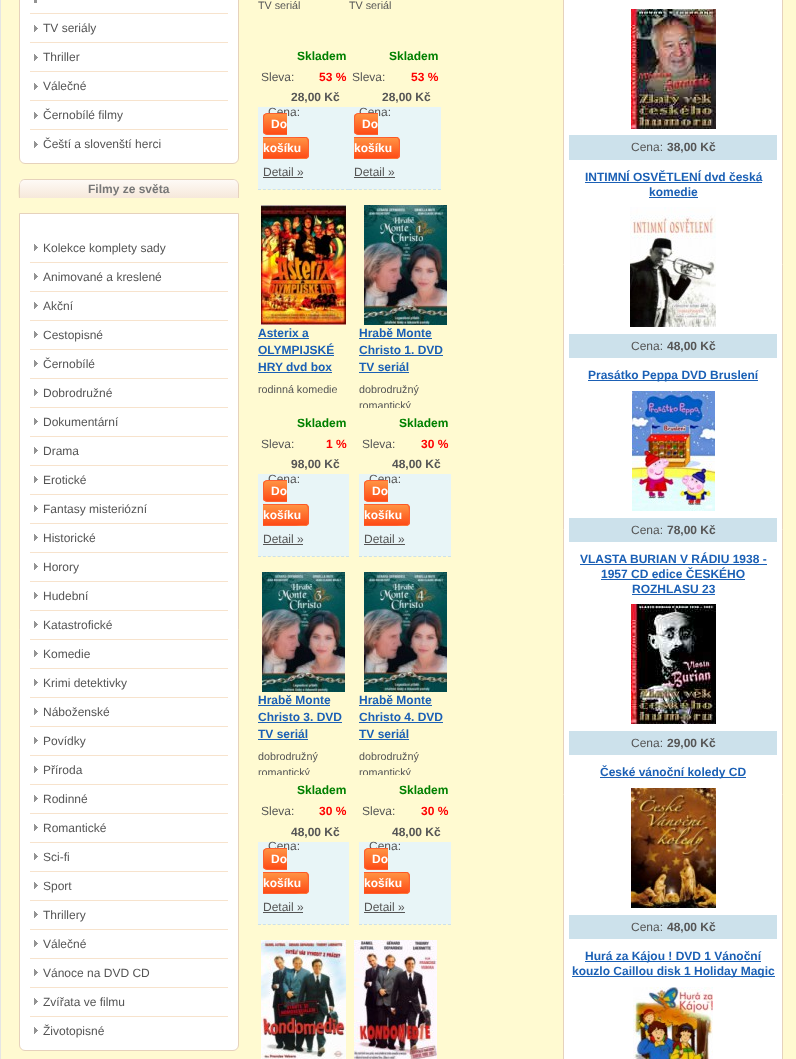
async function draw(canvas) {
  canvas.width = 796;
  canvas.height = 1059;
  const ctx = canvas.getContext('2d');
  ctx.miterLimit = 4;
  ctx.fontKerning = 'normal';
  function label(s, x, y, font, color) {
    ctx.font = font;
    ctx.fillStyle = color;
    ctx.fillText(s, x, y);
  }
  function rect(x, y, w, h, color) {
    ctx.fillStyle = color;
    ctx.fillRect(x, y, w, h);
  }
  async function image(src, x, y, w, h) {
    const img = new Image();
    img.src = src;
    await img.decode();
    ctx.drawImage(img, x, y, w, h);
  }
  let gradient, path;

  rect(0, 0, 796, 1059, '#fffad1');
  rect(0, 0, 1, 1059, '#e5e5e5');
  ctx.fillStyle = '#fff';
  path = new Path2D('M19.5-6.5H238.5V158C238.5 161 236 163.5 233 163.5H25C22 163.5 19.5 161 19.5 158Z');
  ctx.fill(path);
  ctx.strokeStyle = '#e6d2bc';
  ctx.stroke(path);
  rect(34, 0, 3, 3, '#939393');
  rect(30, 13, 198, 1, '#f7e3cd');
  await image('assets/img1.png', 34, 25, 4, 7);
  rect(30, 42, 198, 1, '#f7e3cd');
  label('TV seriály', 43, 32, '12px Liberation Sans', '#555');
  await image('assets/img1.png', 34, 54, 4, 7);
  rect(30, 71, 198, 1, '#f7e3cd');
  label('Thriller', 43, 61, '12px Liberation Sans', '#555');
  await image('assets/img1.png', 34, 83, 4, 7);
  rect(30, 100, 198, 1, '#f7e3cd');
  label('Válečné', 43, 90, '12px Liberation Sans', '#555');
  await image('assets/img1.png', 34, 112, 4, 7);
  rect(30, 129, 198, 1, '#f7e3cd');
  label('Černobílé filmy', 43, 119, '12px Liberation Sans', '#555');
  await image('assets/img1.png', 34, 141, 4, 7);
  label('Čeští a slovenští herci', 43, 148, '12px Liberation Sans', '#555');
  ctx.fillStyle = '#fefaf6';
  ctx.beginPath();
  ctx.roundRect(19, 179, 220, 19, [6, 6, 0, 0]);
  ctx.fill();
  ctx.save();
  ctx.beginPath();
  ctx.roundRect(19, 179, 220, 19, [6, 6, 0, 0]);
  ctx.clip();
  gradient = ctx.createLinearGradient(20, 180, 20, 198);
  gradient.addColorStop(0, '#fefaf6');
  gradient.addColorStop(1, '#f6e8da');
  ctx.fillStyle = gradient;
  ctx.fillRect(20, 180, 218, 18);
  ctx.restore();
  ctx.fillStyle = '#e6d2bc';
  path = new Path2D('M25 179H233C236 179 239 182 239 185V198H19C19 193 17 179 25 179ZM25 180H233C236 180 238 182 238 185V198H20V185C20 182 22 180 25 180Z');
  ctx.fill(path, 'evenodd');
  label('Filmy ze světa', 88, 193, 'bold 12px Liberation Sans', '#777');
  ctx.fillStyle = '#fff';
  ctx.beginPath();
  ctx.roundRect(19.5, 213.5, 219, 837, [0, 0, 5.5, 5.5]);
  ctx.fill();
  ctx.stroke();
  await image('assets/img1.png', 34, 244, 4, 7);
  rect(30, 262, 198, 1, '#f7e3cd');
  label('Kolekce komplety sady', 43, 252, '12px Liberation Sans', '#555');
  await image('assets/img1.png', 34, 273, 4, 7);
  rect(30, 291, 198, 1, '#f7e3cd');
  label('Animované a kreslené', 43, 281, '12px Liberation Sans', '#555');
  await image('assets/img1.png', 34, 302, 4, 7);
  rect(30, 320, 198, 1, '#f7e3cd');
  label('Akční', 43, 310, '12px Liberation Sans', '#555');
  await image('assets/img1.png', 34, 331, 4, 7);
  rect(30, 349, 198, 1, '#f7e3cd');
  label('Cestopisné', 43, 339, '12px Liberation Sans', '#555');
  await image('assets/img1.png', 34, 360, 4, 7);
  rect(30, 378, 198, 1, '#f7e3cd');
  label('Černobílé', 43, 368, '12px Liberation Sans', '#555');
  await image('assets/img1.png', 34, 389, 4, 7);
  rect(30, 407, 198, 1, '#f7e3cd');
  label('Dobrodružné', 43, 397, '12px Liberation Sans', '#555');
  await image('assets/img1.png', 34, 418, 4, 7);
  rect(30, 436, 198, 1, '#f7e3cd');
  label('Dokumentární', 43, 426, '12px Liberation Sans', '#555');
  await image('assets/img1.png', 34, 447, 4, 7);
  rect(30, 465, 198, 1, '#f7e3cd');
  label('Drama', 43, 455, '12px Liberation Sans', '#555');
  await image('assets/img1.png', 34, 476, 4, 7);
  rect(30, 494, 198, 1, '#f7e3cd');
  label('Erotické', 43, 484, '12px Liberation Sans', '#555');
  await image('assets/img1.png', 34, 505, 4, 7);
  rect(30, 523, 198, 1, '#f7e3cd');
  label('Fantasy misteriózní', 43, 513, '12px Liberation Sans', '#555');
  await image('assets/img1.png', 34, 534, 4, 7);
  rect(30, 552, 198, 1, '#f7e3cd');
  label('Historické', 43, 542, '12px Liberation Sans', '#555');
  await image('assets/img1.png', 34, 563, 4, 7);
  rect(30, 581, 198, 1, '#f7e3cd');
  label('Horory', 43, 571, '12px Liberation Sans', '#555');
  await image('assets/img1.png', 34, 592, 4, 7);
  rect(30, 610, 198, 1, '#f7e3cd');
  label('Hudební', 43, 600, '12px Liberation Sans', '#555');
  await image('assets/img1.png', 34, 621, 4, 7);
  rect(30, 639, 198, 1, '#f7e3cd');
  label('Katastrofické', 43, 629, '12px Liberation Sans', '#555');
  await image('assets/img1.png', 34, 650, 4, 7);
  rect(30, 668, 198, 1, '#f7e3cd');
  label('Komedie', 43, 658, '12px Liberation Sans', '#555');
  await image('assets/img1.png', 34, 679, 4, 7);
  rect(30, 697, 198, 1, '#f7e3cd');
  label('Krimi detektivky', 43, 687, '12px Liberation Sans', '#555');
  await image('assets/img1.png', 34, 708, 4, 7);
  rect(30, 726, 198, 1, '#f7e3cd');
  label('Náboženské', 43, 716, '12px Liberation Sans', '#555');
  await image('assets/img1.png', 34, 737, 4, 7);
  rect(30, 755, 198, 1, '#f7e3cd');
  label('Povídky', 43, 745, '12px Liberation Sans', '#555');
  await image('assets/img1.png', 34, 766, 4, 7);
  rect(30, 784, 198, 1, '#f7e3cd');
  label('Příroda', 43, 774, '12px Liberation Sans', '#555');
  await image('assets/img1.png', 34, 795, 4, 7);
  rect(30, 813, 198, 1, '#f7e3cd');
  label('Rodinné', 43, 803, '12px Liberation Sans', '#555');
  await image('assets/img1.png', 34, 824, 4, 7);
  rect(30, 842, 198, 1, '#f7e3cd');
  label('Romantické', 43, 832, '12px Liberation Sans', '#555');
  await image('assets/img1.png', 34, 853, 4, 7);
  rect(30, 871, 198, 1, '#f7e3cd');
  label('Sci-fi', 43, 861, '12px Liberation Sans', '#555');
  await image('assets/img1.png', 34, 882, 4, 7);
  rect(30, 900, 198, 1, '#f7e3cd');
  label('Sport', 43, 890, '12px Liberation Sans', '#555');
  await image('assets/img1.png', 34, 911, 4, 7);
  rect(30, 929, 198, 1, '#f7e3cd');
  label('Thrillery', 43, 919, '12px Liberation Sans', '#555');
  await image('assets/img1.png', 34, 940, 4, 7);
  rect(30, 958, 198, 1, '#f7e3cd');
  label('Válečné', 43, 948, '12px Liberation Sans', '#555');
  await image('assets/img1.png', 34, 969, 4, 7);
  rect(30, 987, 198, 1, '#f7e3cd');
  label('Vánoce na DVD CD', 43, 977, '12px Liberation Sans', '#555');
  await image('assets/img1.png', 34, 998, 4, 7);
  rect(30, 1016, 198, 1, '#f7e3cd');
  label('Zvířata ve filmu', 43, 1006, '12px Liberation Sans', '#555');
  await image('assets/img1.png', 34, 1027, 4, 7);
  label('Životopisné', 43, 1035, '12px Liberation Sans', '#555');
  label('TV seriál', 258, 9, '10.75px Liberation Sans', '#555');
  path = new Path2D('M258 189.5H349');
  ctx.strokeStyle = '#cce1eb';
  ctx.setLineDash([3, 1.89]);
  ctx.stroke(path);
  label('Skladem', 297, 60, 'bold 12px Liberation Sans', '#008000');
  label('Sleva:', 261, 81, '12px Liberation Sans', '#555');
  label('53 %', 319, 81, 'bold 12px Liberation Sans', '#f00');
  label('28,00 Kč', 291, 101, 'bold 12px Liberation Sans', '#555');
  rect(258, 107, 183, 82, '#e8f5f7');
  label('Cena:', 268, 116, '12px Liberation Sans', '#555');
  ctx.save();
  ctx.beginPath();
  ctx.roundRect(263, 113, 24, 22, [4, 0, 0, 4]);
  ctx.clip();
  gradient = ctx.createLinearGradient(264, 114, 264, 134);
  gradient.addColorStop(0, '#ff9343');
  gradient.addColorStop(1, '#fe4b16');
  ctx.fillStyle = gradient;
  ctx.fillRect(263, 114, 24, 20);
  ctx.restore();
  ctx.fillStyle = '#fc6031';
  path = new Path2D('M267 113H287V135H267C265 135 263 133 263 131V117C263 115 265 113 267 113ZM267 114H287V134H267C265.5 134 264 132.5 264 131V117C264 115.5 265.5 114 267 114Z');
  ctx.fill(path, 'evenodd');
  label('Do', 271, 128, 'bold 12px Liberation Sans', '#fff');
  ctx.save();
  ctx.beginPath();
  ctx.roundRect(263, 137, 46, 22, [0, 4, 4, 0]);
  ctx.clip();
  gradient = ctx.createLinearGradient(263, 138, 263, 158);
  gradient.addColorStop(0, '#ff9343');
  gradient.addColorStop(1, '#fe4b16');
  ctx.fillStyle = gradient;
  ctx.fillRect(263, 138, 46, 20);
  gradient = ctx.createLinearGradient(263, 118, 263, 138);
  gradient.addColorStop(0, '#ff9343');
  gradient.addColorStop(1, '#fe4b16');
  ctx.fillStyle = gradient;
  ctx.fillRect(292, 137, 17, 1);
  gradient = ctx.createLinearGradient(263, 158, 263, 178);
  gradient.addColorStop(0, '#ff9343');
  gradient.addColorStop(1, '#fe4b16');
  ctx.fillStyle = gradient;
  ctx.fillRect(292, 158, 17, 1);
  ctx.restore();
  ctx.fillStyle = '#fc6031';
  path = new Path2D('M263 137H305C307 137 309 139 309 141V155C309 157 307 159 305 159H263ZM263 138H291C307 138 308 134 308 148C308 162 307 158 291 158H263Z');
  ctx.fill(path, 'evenodd');
  label('košíku', 263, 152, 'bold 12px Liberation Sans', '#fff');
  label('Detail »', 263, 176, '12px Liberation Sans', '#555');
  rect(263, 177, 40, 1, '#555');
  label('TV seriál', 349, 9, '10.75px Liberation Sans', '#555');
  path = new Path2D('M349 189.5H441');
  ctx.setLineDash([3, 1.94]);
  ctx.stroke(path);
  label('Skladem', 389, 60, 'bold 12px Liberation Sans', '#008000');
  label('Sleva:', 352, 81, '12px Liberation Sans', '#555');
  label('53 %', 411, 81, 'bold 12px Liberation Sans', '#f00');
  label('28,00 Kč', 382, 101, 'bold 12px Liberation Sans', '#555');
  label('Cena:', 359, 116, '12px Liberation Sans', '#555');
  ctx.save();
  ctx.beginPath();
  ctx.roundRect(354, 113, 24, 22, [4, 0, 0, 4]);
  ctx.clip();
  gradient = ctx.createLinearGradient(355, 114, 355, 134);
  gradient.addColorStop(0, '#ff9343');
  gradient.addColorStop(1, '#fe4b16');
  ctx.fillStyle = gradient;
  ctx.fillRect(354, 114, 24, 20);
  ctx.restore();
  ctx.fillStyle = '#fc6031';
  path = new Path2D('M358 113H378V135H358C356 135 354 133 354 131V117C354 115 356 113 358 113ZM358 114H378V134H358C356.5 134 355 132.5 355 131V117C355 115.5 356.5 114 358 114Z');
  ctx.fill(path, 'evenodd');
  label('Do', 362, 128, 'bold 12px Liberation Sans', '#fff');
  ctx.save();
  ctx.beginPath();
  ctx.roundRect(354, 137, 46, 22, [0, 4, 4, 0]);
  ctx.clip();
  gradient = ctx.createLinearGradient(354, 138, 354, 158);
  gradient.addColorStop(0, '#ff9343');
  gradient.addColorStop(1, '#fe4b16');
  ctx.fillStyle = gradient;
  ctx.fillRect(354, 138, 46, 20);
  gradient = ctx.createLinearGradient(354, 118, 354, 138);
  gradient.addColorStop(0, '#ff9343');
  gradient.addColorStop(1, '#fe4b16');
  ctx.fillStyle = gradient;
  ctx.fillRect(383, 137, 17, 1);
  gradient = ctx.createLinearGradient(354, 158, 354, 178);
  gradient.addColorStop(0, '#ff9343');
  gradient.addColorStop(1, '#fe4b16');
  ctx.fillStyle = gradient;
  ctx.fillRect(383, 158, 17, 1);
  ctx.restore();
  ctx.fillStyle = '#fc6031';
  path = new Path2D('M354 137H396C398 137 400 139 400 141V155C400 157 398 159 396 159H354ZM354 138H382C398 138 399 134 399 148C399 162 398 158 382 158H354Z');
  ctx.fill(path, 'evenodd');
  label('košíku', 354, 152, 'bold 12px Liberation Sans', '#fff');
  label('Detail »', 354, 176, '12px Liberation Sans', '#555');
  rect(354, 177, 41, 1, '#555');
  await image('assets/img2.png', 261, 205, 85, 120);
  label('Asterix a', 258, 337, 'bold 12px Liberation Sans', '#1b60b5');
  rect(258, 338, 51, 1, '#1b60b5');
  label('OLYMPIJSKÉ', 258, 354, 'bold 12px Liberation Sans', '#1b60b5');
  rect(258, 355, 76, 1, '#1b60b5');
  label('HRY dvd box', 258, 371, 'bold 12px Liberation Sans', '#1b60b5');
  rect(258, 372, 74, 1, '#1b60b5');
  label('rodinná komedie', 258, 393, '10.75px Liberation Sans', '#555');
  path = new Path2D('M258 556.5H349');
  ctx.setLineDash([3, 1.89]);
  ctx.stroke(path);
  label('Skladem', 297, 427, 'bold 12px Liberation Sans', '#008000');
  label('Sleva:', 261, 448, '12px Liberation Sans', '#555');
  label('1 %', 326, 448, 'bold 12px Liberation Sans', '#f00');
  label('98,00 Kč', 291, 468, 'bold 12px Liberation Sans', '#555');
  rect(258, 474, 91, 82, '#e8f5f7');
  label('Cena:', 268, 483, '12px Liberation Sans', '#555');
  ctx.save();
  ctx.beginPath();
  ctx.roundRect(263, 480, 24, 22, [4, 0, 0, 4]);
  ctx.clip();
  gradient = ctx.createLinearGradient(264, 481, 264, 501);
  gradient.addColorStop(0, '#ff9343');
  gradient.addColorStop(1, '#fe4b16');
  ctx.fillStyle = gradient;
  ctx.fillRect(263, 481, 24, 20);
  ctx.restore();
  ctx.fillStyle = '#fc6031';
  path = new Path2D('M267 480H287V502H267C265 502 263 500 263 498V484C263 482 265 480 267 480ZM267 481H287V501H267C265.5 501 264 499.5 264 498V484C264 482.5 265.5 481 267 481Z');
  ctx.fill(path, 'evenodd');
  label('Do', 271, 495, 'bold 12px Liberation Sans', '#fff');
  ctx.save();
  ctx.beginPath();
  ctx.roundRect(263, 504, 46, 22, [0, 4, 4, 0]);
  ctx.clip();
  gradient = ctx.createLinearGradient(263, 505, 263, 525);
  gradient.addColorStop(0, '#ff9343');
  gradient.addColorStop(1, '#fe4b16');
  ctx.fillStyle = gradient;
  ctx.fillRect(263, 505, 46, 20);
  gradient = ctx.createLinearGradient(263, 485, 263, 505);
  gradient.addColorStop(0, '#ff9343');
  gradient.addColorStop(1, '#fe4b16');
  ctx.fillStyle = gradient;
  ctx.fillRect(292, 504, 17, 1);
  gradient = ctx.createLinearGradient(263, 525, 263, 545);
  gradient.addColorStop(0, '#ff9343');
  gradient.addColorStop(1, '#fe4b16');
  ctx.fillStyle = gradient;
  ctx.fillRect(292, 525, 17, 1);
  ctx.restore();
  ctx.fillStyle = '#fc6031';
  path = new Path2D('M263 504H305C307 504 309 506 309 508V522C309 524 307 526 305 526H263ZM263 505H291C307 505 308 501 308 515C308 529 307 525 291 525H263Z');
  ctx.fill(path, 'evenodd');
  label('košíku', 263, 519, 'bold 12px Liberation Sans', '#fff');
  label('Detail »', 263, 543, '12px Liberation Sans', '#555');
  rect(263, 544, 40, 1, '#555');
  await image('assets/img3.png', 364, 205, 83, 120);
  label('Hrabě Monte', 359, 337, 'bold 12px Liberation Sans', '#1b60b5');
  rect(359, 338, 73, 1, '#1b60b5');
  label('Christo 1. DVD', 359, 354, 'bold 12px Liberation Sans', '#1b60b5');
  rect(359, 355, 84, 1, '#1b60b5');
  label('TV seriál', 359, 371, 'bold 12px Liberation Sans', '#1b60b5');
  rect(359, 372, 50, 1, '#1b60b5');
  label('dobrodružný', 359, 393, '10.75px Liberation Sans', '#555');
  ctx.save();
  ctx.beginPath();
  ctx.rect(359, 325, 92, 83);
  ctx.clip();
  label('romantický', 359, 409, '10.75px Liberation Sans', '#555');
  ctx.restore();
  path = new Path2D('M359 556.5H451');
  ctx.setLineDash([3, 1.94]);
  ctx.stroke(path);
  label('Skladem', 399, 427, 'bold 12px Liberation Sans', '#008000');
  label('Sleva:', 362, 448, '12px Liberation Sans', '#555');
  label('30 %', 421, 448, 'bold 12px Liberation Sans', '#f00');
  label('48,00 Kč', 392, 468, 'bold 12px Liberation Sans', '#555');
  rect(359, 474, 92, 82, '#e8f5f7');
  label('Cena:', 369, 483, '12px Liberation Sans', '#555');
  ctx.save();
  ctx.beginPath();
  ctx.roundRect(364, 480, 24, 22, [4, 0, 0, 4]);
  ctx.clip();
  gradient = ctx.createLinearGradient(365, 481, 365, 501);
  gradient.addColorStop(0, '#ff9343');
  gradient.addColorStop(1, '#fe4b16');
  ctx.fillStyle = gradient;
  ctx.fillRect(364, 481, 24, 20);
  ctx.restore();
  ctx.fillStyle = '#fc6031';
  path = new Path2D('M368 480H388V502H368C366 502 364 500 364 498V484C364 482 366 480 368 480ZM368 481H388V501H368C366.5 501 365 499.5 365 498V484C365 482.5 366.5 481 368 481Z');
  ctx.fill(path, 'evenodd');
  label('Do', 372, 495, 'bold 12px Liberation Sans', '#fff');
  ctx.save();
  ctx.beginPath();
  ctx.roundRect(364, 504, 46, 22, [0, 4, 4, 0]);
  ctx.clip();
  gradient = ctx.createLinearGradient(364, 505, 364, 525);
  gradient.addColorStop(0, '#ff9343');
  gradient.addColorStop(1, '#fe4b16');
  ctx.fillStyle = gradient;
  ctx.fillRect(364, 505, 46, 20);
  gradient = ctx.createLinearGradient(364, 485, 364, 505);
  gradient.addColorStop(0, '#ff9343');
  gradient.addColorStop(1, '#fe4b16');
  ctx.fillStyle = gradient;
  ctx.fillRect(393, 504, 17, 1);
  gradient = ctx.createLinearGradient(364, 525, 364, 545);
  gradient.addColorStop(0, '#ff9343');
  gradient.addColorStop(1, '#fe4b16');
  ctx.fillStyle = gradient;
  ctx.fillRect(393, 525, 17, 1);
  ctx.restore();
  ctx.fillStyle = '#fc6031';
  path = new Path2D('M364 504H406C408 504 410 506 410 508V522C410 524 408 526 406 526H364ZM364 505H392C408 505 409 501 409 515C409 529 408 525 392 525H364Z');
  ctx.fill(path, 'evenodd');
  label('košíku', 364, 519, 'bold 12px Liberation Sans', '#fff');
  label('Detail »', 364, 543, '12px Liberation Sans', '#555');
  rect(364, 544, 41, 1, '#555');
  await image('assets/img4.png', 262, 572, 83, 120);
  label('Hrabě Monte', 258, 704, 'bold 12px Liberation Sans', '#1b60b5');
  rect(258, 705, 72, 1, '#1b60b5');
  label('Christo 3. DVD', 258, 721, 'bold 12px Liberation Sans', '#1b60b5');
  rect(258, 722, 84, 1, '#1b60b5');
  label('TV seriál', 258, 738, 'bold 12px Liberation Sans', '#1b60b5');
  rect(258, 739, 50, 1, '#1b60b5');
  label('dobrodružný', 258, 760, '10.75px Liberation Sans', '#555');
  ctx.save();
  ctx.beginPath();
  ctx.rect(258, 692, 91, 83);
  ctx.clip();
  label('romantický', 258, 776, '10.75px Liberation Sans', '#555');
  ctx.restore();
  path = new Path2D('M258 924.5H349');
  ctx.setLineDash([3, 1.89]);
  ctx.stroke(path);
  label('Skladem', 297, 794, 'bold 12px Liberation Sans', '#008000');
  label('Sleva:', 261, 815, '12px Liberation Sans', '#555');
  label('30 %', 319, 815, 'bold 12px Liberation Sans', '#f00');
  label('48,00 Kč', 291, 836, 'bold 12px Liberation Sans', '#555');
  rect(258, 842, 91, 82, '#e8f5f7');
  label('Cena:', 268, 850, '12px Liberation Sans', '#555');
  ctx.save();
  ctx.beginPath();
  ctx.roundRect(263, 848, 24, 22, [4, 0, 0, 4]);
  ctx.clip();
  gradient = ctx.createLinearGradient(264, 849, 264, 869);
  gradient.addColorStop(0, '#ff9343');
  gradient.addColorStop(1, '#fe4b16');
  ctx.fillStyle = gradient;
  ctx.fillRect(263, 849, 24, 20);
  ctx.restore();
  ctx.fillStyle = '#fc6031';
  path = new Path2D('M267 848H287V870H267C265 870 263 868 263 866V852C263 850 265 848 267 848ZM267 849H287V869H267C265.5 869 264 867.5 264 866V852C264 850.5 265.5 849 267 849Z');
  ctx.fill(path, 'evenodd');
  label('Do', 271, 863, 'bold 12px Liberation Sans', '#fff');
  ctx.save();
  ctx.beginPath();
  ctx.roundRect(263, 872, 46, 22, [0, 4, 4, 0]);
  ctx.clip();
  gradient = ctx.createLinearGradient(263, 873, 263, 893);
  gradient.addColorStop(0, '#ff9343');
  gradient.addColorStop(1, '#fe4b16');
  ctx.fillStyle = gradient;
  ctx.fillRect(263, 873, 46, 20);
  gradient = ctx.createLinearGradient(263, 853, 263, 873);
  gradient.addColorStop(0, '#ff9343');
  gradient.addColorStop(1, '#fe4b16');
  ctx.fillStyle = gradient;
  ctx.fillRect(292, 872, 17, 1);
  gradient = ctx.createLinearGradient(263, 893, 263, 913);
  gradient.addColorStop(0, '#ff9343');
  gradient.addColorStop(1, '#fe4b16');
  ctx.fillStyle = gradient;
  ctx.fillRect(292, 893, 17, 1);
  ctx.restore();
  ctx.fillStyle = '#fc6031';
  path = new Path2D('M263 872H305C307 872 309 874 309 876V890C309 892 307 894 305 894H263ZM263 873H291C307 873 308 869 308 883C308 897 307 893 291 893H263Z');
  ctx.fill(path, 'evenodd');
  label('košíku', 263, 887, 'bold 12px Liberation Sans', '#fff');
  label('Detail »', 263, 911, '12px Liberation Sans', '#555');
  rect(263, 912, 40, 1, '#555');
  await image('assets/img5.png', 364, 572, 83, 120);
  label('Hrabě Monte', 359, 704, 'bold 12px Liberation Sans', '#1b60b5');
  rect(359, 705, 73, 1, '#1b60b5');
  label('Christo 4. DVD', 359, 721, 'bold 12px Liberation Sans', '#1b60b5');
  rect(359, 722, 84, 1, '#1b60b5');
  label('TV seriál', 359, 738, 'bold 12px Liberation Sans', '#1b60b5');
  rect(359, 739, 50, 1, '#1b60b5');
  label('dobrodružný', 359, 760, '10.75px Liberation Sans', '#555');
  ctx.save();
  ctx.beginPath();
  ctx.rect(359, 692, 92, 83);
  ctx.clip();
  label('romantický', 359, 776, '10.75px Liberation Sans', '#555');
  ctx.restore();
  path = new Path2D('M359 924.5H451');
  ctx.setLineDash([3, 1.94]);
  ctx.stroke(path);
  label('Skladem', 399, 794, 'bold 12px Liberation Sans', '#008000');
  label('Sleva:', 362, 815, '12px Liberation Sans', '#555');
  label('30 %', 421, 815, 'bold 12px Liberation Sans', '#f00');
  label('48,00 Kč', 392, 836, 'bold 12px Liberation Sans', '#555');
  rect(359, 842, 92, 82, '#e8f5f7');
  label('Cena:', 369, 850, '12px Liberation Sans', '#555');
  ctx.save();
  ctx.beginPath();
  ctx.roundRect(364, 848, 24, 22, [4, 0, 0, 4]);
  ctx.clip();
  gradient = ctx.createLinearGradient(365, 849, 365, 869);
  gradient.addColorStop(0, '#ff9343');
  gradient.addColorStop(1, '#fe4b16');
  ctx.fillStyle = gradient;
  ctx.fillRect(364, 849, 24, 20);
  ctx.restore();
  ctx.fillStyle = '#fc6031';
  path = new Path2D('M368 848H388V870H368C366 870 364 868 364 866V852C364 850 366 848 368 848ZM368 849H388V869H368C366.5 869 365 867.5 365 866V852C365 850.5 366.5 849 368 849Z');
  ctx.fill(path, 'evenodd');
  label('Do', 372, 863, 'bold 12px Liberation Sans', '#fff');
  ctx.save();
  ctx.beginPath();
  ctx.roundRect(364, 872, 46, 22, [0, 4, 4, 0]);
  ctx.clip();
  gradient = ctx.createLinearGradient(364, 873, 364, 893);
  gradient.addColorStop(0, '#ff9343');
  gradient.addColorStop(1, '#fe4b16');
  ctx.fillStyle = gradient;
  ctx.fillRect(364, 873, 46, 20);
  gradient = ctx.createLinearGradient(364, 853, 364, 873);
  gradient.addColorStop(0, '#ff9343');
  gradient.addColorStop(1, '#fe4b16');
  ctx.fillStyle = gradient;
  ctx.fillRect(393, 872, 17, 1);
  gradient = ctx.createLinearGradient(364, 893, 364, 913);
  gradient.addColorStop(0, '#ff9343');
  gradient.addColorStop(1, '#fe4b16');
  ctx.fillStyle = gradient;
  ctx.fillRect(393, 893, 17, 1);
  ctx.restore();
  ctx.fillStyle = '#fc6031';
  path = new Path2D('M364 872H406C408 872 410 874 410 876V890C410 892 408 894 406 894H364ZM364 873H392C408 873 409 869 409 883C409 897 408 893 392 893H364Z');
  ctx.fill(path, 'evenodd');
  label('košíku', 364, 887, 'bold 12px Liberation Sans', '#fff');
  label('Detail »', 364, 911, '12px Liberation Sans', '#555');
  rect(364, 912, 41, 1, '#555');
  await image('assets/img6.png', 261, 940, 85, 119);
  await image('assets/img7.png', 354, 940, 83, 119);
  ctx.fillStyle = '#fff';
  ctx.beginPath();
  ctx.rect(563.5, -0.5, 219, 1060);
  ctx.fill();
  ctx.strokeStyle = '#e6d2bc';
  ctx.setLineDash([]);
  ctx.stroke();
  await image('assets/img8.png', 631, 9, 85, 120);
  rect(569, 135, 208, 25, '#cce1eb');
  label('Cena:', 631, 151, '12px Liberation Sans', '#555');
  label('38,00 Kč', 667, 151, 'bold 12px Liberation Sans', '#555');
  label('INTIMNÍ OSVĚTLENÍ dvd česká', 585, 181, 'bold 12px Liberation Sans', '#1b60b5');
  rect(585, 182, 177, 1, '#1b60b5');
  label('komedie', 649, 196, 'bold 12px Liberation Sans', '#1b60b5');
  rect(649, 197, 49, 1, '#1b60b5');
  await image('assets/img9.png', 630, 207, 86, 120);
  rect(569, 334, 208, 24, '#cce1eb');
  label('Cena:', 631, 350, '12px Liberation Sans', '#555');
  label('48,00 Kč', 667, 350, 'bold 12px Liberation Sans', '#555');
  rect(588, 380, 170, 1, '#1b60b5');
  label('Prasátko Peppa DVD Bruslení', 588, 379, 'bold 12px Liberation Sans', '#1b60b5');
  await image('assets/img10.png', 632, 391, 83, 120);
  rect(569, 518, 208, 24, '#cce1eb');
  label('Cena:', 631, 534, '12px Liberation Sans', '#555');
  label('78,00 Kč', 667, 534, 'bold 12px Liberation Sans', '#555');
  label('VLASTA BURIAN V RÁDIU 1938 -', 580, 563, 'bold 12px Liberation Sans', '#1b60b5');
  rect(580, 564, 187, 1, '#1b60b5');
  label('1957 CD edice ČESKÉHO', 601, 578, 'bold 12px Liberation Sans', '#1b60b5');
  rect(601, 579, 144, 1, '#1b60b5');
  label('ROZHLASU 23', 632, 593, 'bold 12px Liberation Sans', '#1b60b5');
  rect(632, 594, 83, 1, '#1b60b5');
  await image('assets/img11.png', 631, 604, 85, 120);
  rect(569, 731, 208, 24, '#cce1eb');
  label('Cena:', 631, 747, '12px Liberation Sans', '#555');
  label('29,00 Kč', 667, 747, 'bold 12px Liberation Sans', '#555');
  rect(600, 777, 146, 1, '#1b60b5');
  label('České vánoční koledy CD', 600, 776, 'bold 12px Liberation Sans', '#1b60b5');
  await image('assets/img12.png', 631, 788, 85, 120);
  rect(569, 915, 208, 24, '#cce1eb');
  label('Cena:', 631, 931, '12px Liberation Sans', '#555');
  label('48,00 Kč', 667, 931, 'bold 12px Liberation Sans', '#555');
  rect(585, 961, 176, 1, '#1b60b5');
  label('Hurá za Kájou ! DVD 1 Vánoční', 585, 960, 'bold 12px Liberation Sans', '#1b60b5');
  rect(572, 976, 203, 1, '#1b60b5');
  label('kouzlo Caillou disk 1 Holiday Magic', 572, 975, 'bold 12px Liberation Sans', '#1b60b5');
  await image('assets/img13.png', 633, 987, 80, 72);
}

draw(document.querySelector('canvas'));
